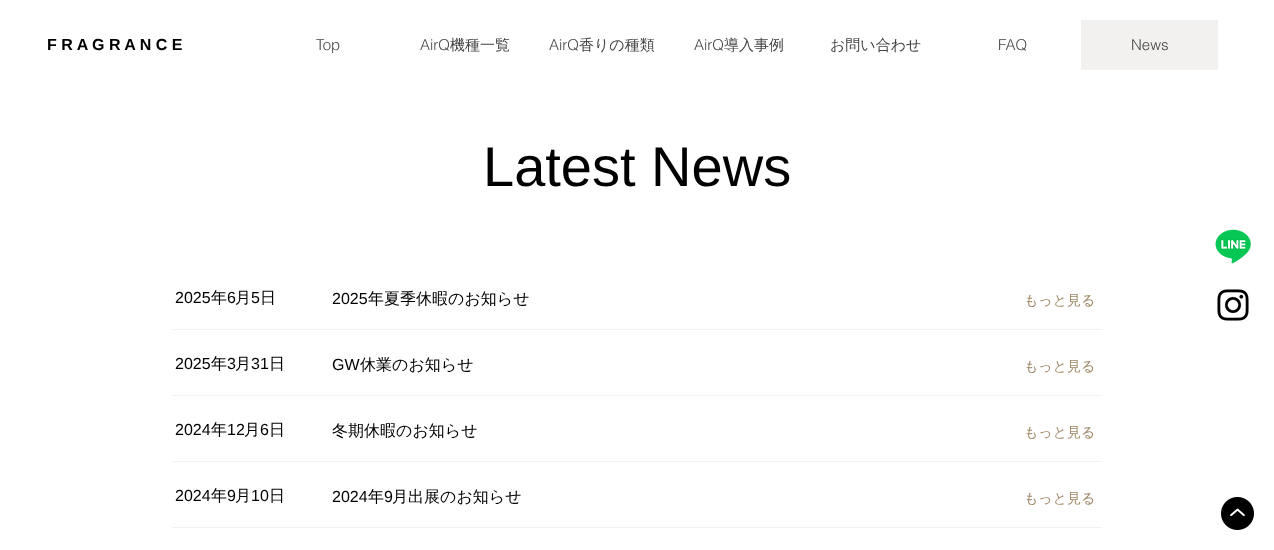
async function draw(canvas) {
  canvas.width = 1274;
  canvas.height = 550;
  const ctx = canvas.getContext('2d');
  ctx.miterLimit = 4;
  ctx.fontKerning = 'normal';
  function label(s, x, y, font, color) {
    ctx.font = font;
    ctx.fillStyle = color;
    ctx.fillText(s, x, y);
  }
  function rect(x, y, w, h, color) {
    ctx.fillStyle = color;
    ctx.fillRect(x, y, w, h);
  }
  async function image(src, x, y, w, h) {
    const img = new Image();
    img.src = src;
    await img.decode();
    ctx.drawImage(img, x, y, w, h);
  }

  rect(0, 0, 1274, 550, '#fff');
  label('F R A G R A N C E', 47, 50, 'bold 16px Liberation Sans', '#000');
  label('Top', 316, 50, '300 15px helvetica', '#444');
  label('AirQ', 420, 50, '300 15px helvetica', '#444');
  label('機種一覧', 450, 50, '500 15px WenQuanYi Zen Hei', '#444');
  label('AirQ', 549, 50, '300 15px helvetica', '#444');
  label('香りの種類', 579, 50, '500 15px WenQuanYi Zen Hei', '#444');
  label('AirQ', 694, 50, '300 15px helvetica', '#444');
  label('導入事例', 724, 50, '500 15px WenQuanYi Zen Hei', '#444');
  label('お問い合わせ', 830, 50, '500 15px WenQuanYi Zen Hei', '#444');
  label('FAQ', 998, 50, '300 15px helvetica', '#444');
  rect(1081, 20, 137, 50, '#f2f1f0');
  label('News', 1131, 50, '300 15px helvetica', '#444');
  label('Latest News', 483, 186, '56px Liberation Sans', '#000');
  label('2025', 175, 303, '16px Liberation Sans', '#000');
  label('年', 211, 303, '500 16px WenQuanYi Zen Hei', '#000');
  label('6', 227, 303, '16px Liberation Sans', '#000');
  label('月', 235, 303, '500 16px WenQuanYi Zen Hei', '#000');
  label('5', 251, 303, '16px Liberation Sans', '#000');
  label('日', 260, 303, '500 16px WenQuanYi Zen Hei', '#000');
  label('2025', 332, 304, '16px Liberation Sans', '#000');
  label('年夏季休暇のお知らせ', 368, 304, '500 16px WenQuanYi Zen Hei', '#000');
  label('もっと見る', 1024, 305, '500 14px WenQuanYi Zen Hei', '#9e8765');
  rect(172, 329, 930, 1, '#f2f1f0');
  label('2025', 175, 369, '16px Liberation Sans', '#000');
  label('年', 211, 369, '500 16px WenQuanYi Zen Hei', '#000');
  label('3', 227, 369, '16px Liberation Sans', '#000');
  label('月', 235, 369, '500 16px WenQuanYi Zen Hei', '#000');
  label('31', 251, 369, '16px Liberation Sans', '#000');
  label('日', 269, 369, '500 16px WenQuanYi Zen Hei', '#000');
  label('GW', 332, 370, '16px Liberation Sans', '#000');
  label('休業のお知らせ', 360, 370, '500 16px WenQuanYi Zen Hei', '#000');
  label('もっと見る', 1024, 371, '500 14px WenQuanYi Zen Hei', '#9e8765');
  rect(172, 395, 930, 1, '#f2f1f0');
  label('2024', 175, 435, '16px Liberation Sans', '#000');
  label('年', 211, 435, '500 16px WenQuanYi Zen Hei', '#000');
  label('12', 227, 435, '16px Liberation Sans', '#000');
  label('月', 244, 435, '500 16px WenQuanYi Zen Hei', '#000');
  label('6', 260, 435, '16px Liberation Sans', '#000');
  label('日', 269, 435, '500 16px WenQuanYi Zen Hei', '#000');
  label('冬期休暇のお知らせ', 332, 436, '500 16px WenQuanYi Zen Hei', '#000');
  label('もっと見る', 1024, 437, '500 14px WenQuanYi Zen Hei', '#9e8765');
  rect(172, 461, 930, 1, '#f2f1f0');
  label('2024', 175, 501, '16px Liberation Sans', '#000');
  label('年', 211, 501, '500 16px WenQuanYi Zen Hei', '#000');
  label('9', 227, 501, '16px Liberation Sans', '#000');
  label('月', 235, 501, '500 16px WenQuanYi Zen Hei', '#000');
  label('10', 251, 501, '16px Liberation Sans', '#000');
  label('日', 269, 501, '500 16px WenQuanYi Zen Hei', '#000');
  label('2024', 332, 502, '16px Liberation Sans', '#000');
  label('年', 368, 502, '500 16px WenQuanYi Zen Hei', '#000');
  label('9', 384, 502, '16px Liberation Sans', '#000');
  label('月出展のお知らせ', 392, 502, '500 16px WenQuanYi Zen Hei', '#000');
  label('もっと見る', 1024, 503, '500 14px WenQuanYi Zen Hei', '#9e8765');
  rect(172, 527, 930, 1, '#f2f1f0');
  await image('assets/img1.png', 1215, 229, 36, 35);
  await image('assets/img2.png', 1217, 289, 32, 32);
  await image('assets/img3.png', 1221, 497, 33, 33);
}

draw(document.querySelector('canvas'));
